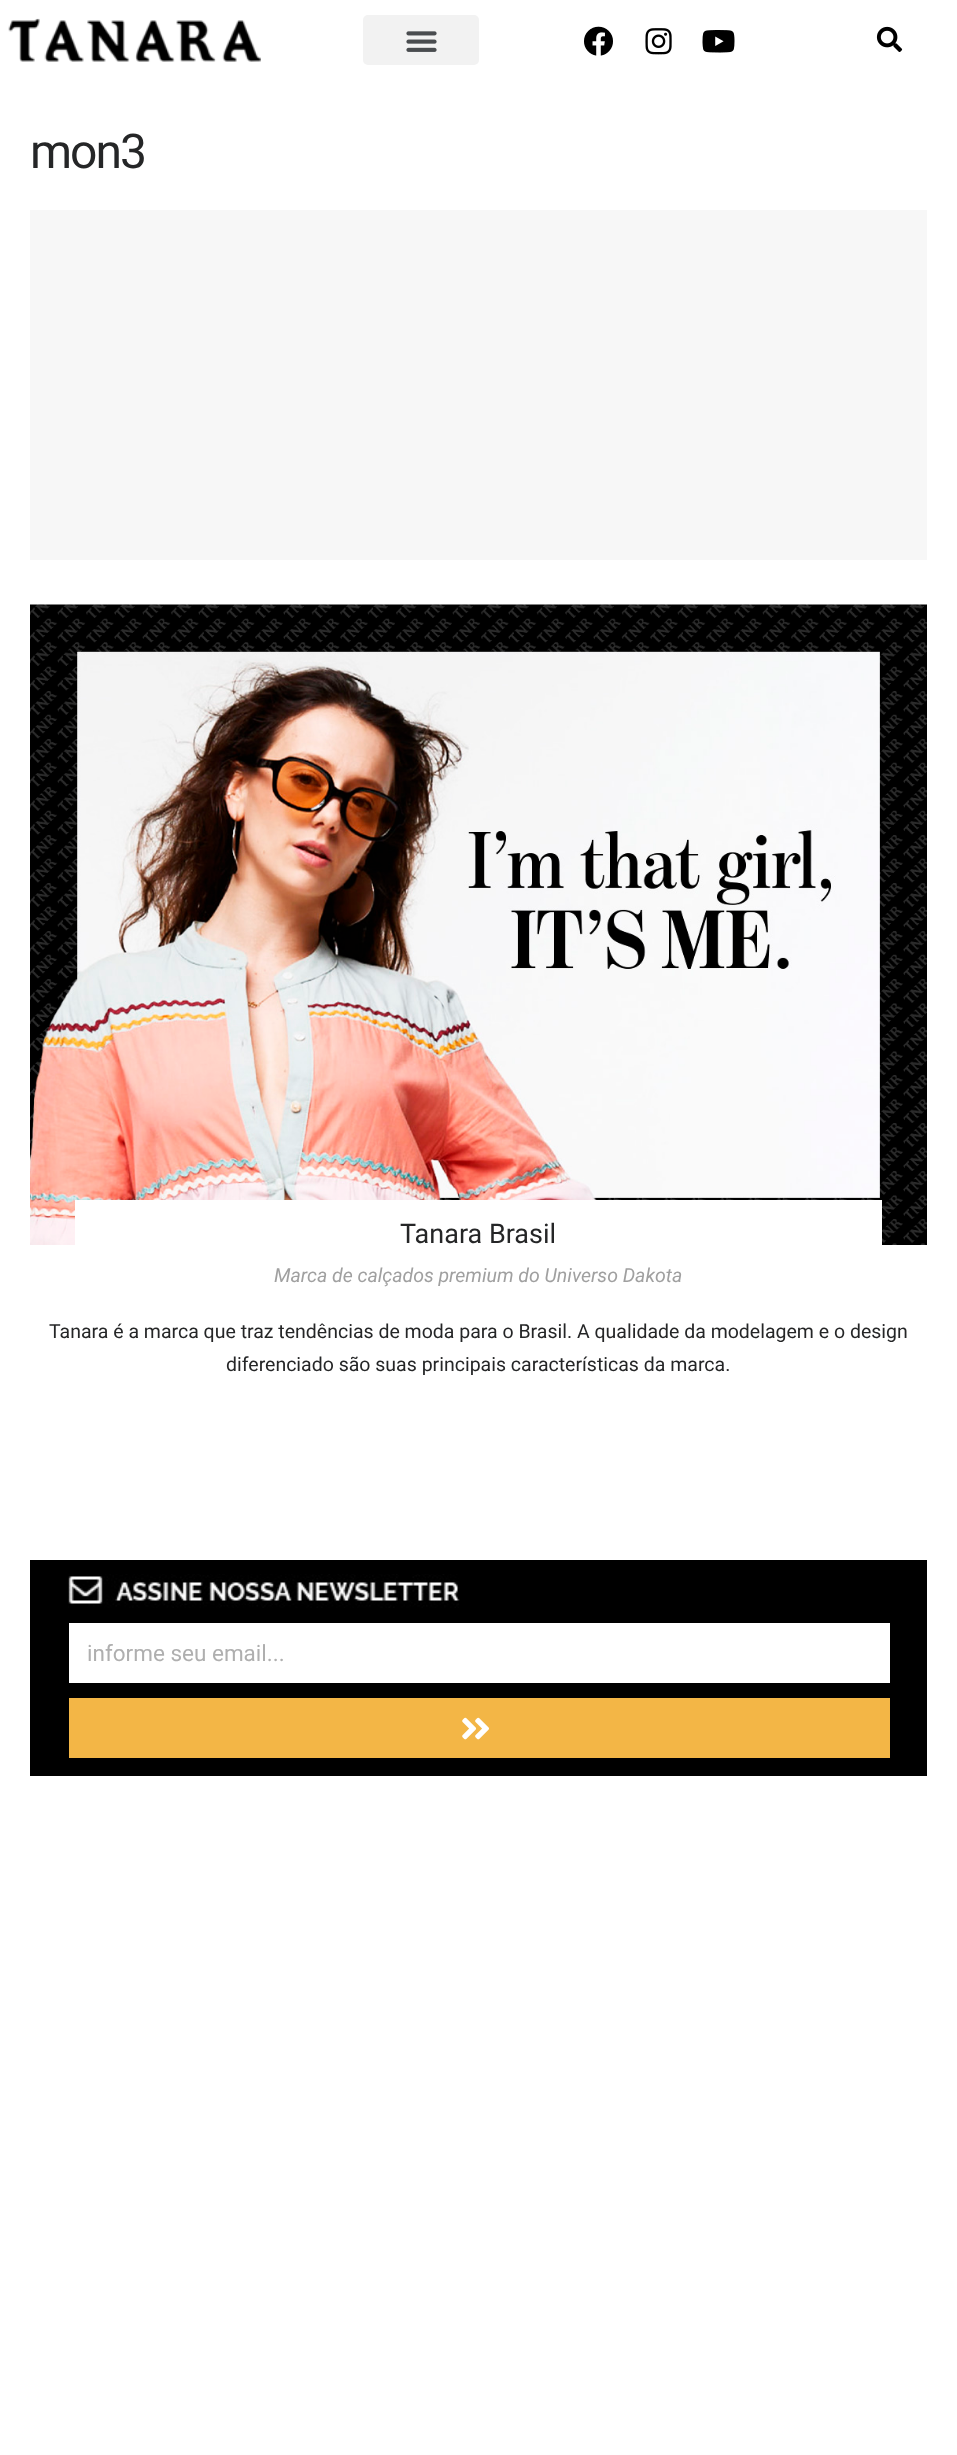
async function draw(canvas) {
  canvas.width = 957;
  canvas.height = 2455;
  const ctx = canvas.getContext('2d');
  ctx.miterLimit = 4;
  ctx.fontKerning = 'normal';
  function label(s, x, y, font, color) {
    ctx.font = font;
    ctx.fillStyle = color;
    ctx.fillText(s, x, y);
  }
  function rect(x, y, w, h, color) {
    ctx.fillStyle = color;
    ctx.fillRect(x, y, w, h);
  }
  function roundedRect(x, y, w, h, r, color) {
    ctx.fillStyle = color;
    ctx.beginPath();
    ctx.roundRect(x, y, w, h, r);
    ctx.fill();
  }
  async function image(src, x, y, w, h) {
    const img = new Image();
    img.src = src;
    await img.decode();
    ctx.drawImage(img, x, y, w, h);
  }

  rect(0, 0, 957, 2455, '#fff');
  await image('assets/img1.png', 8, 18, 253, 44);
  roundedRect(363, 15, 116, 50, 5, '#f2f2f2');
  await image('assets/img2.png', 406, 31, 31, 21);
  await image('assets/img3.png', 584, 26, 29, 30);
  await image('assets/img4.png', 645, 28, 27, 27);
  await image('assets/img5.png', 702, 30, 33, 23);
  await image('assets/img6.png', 876, 26, 27, 26);
  ctx.letterSpacing = '-2px';
  label('mon3', 30, 168, '48px Roboto', '#252627');
  rect(30, 210, 897, 350, '#f7f7f7');
  await image('assets/img7.png', 30, 604, 897, 641);
  rect(75, 1200, 807, 45, '#fff');
  ctx.letterSpacing = '0px';
  label('Tanara Brasil', 400, 1243, '27px Roboto', '#252627');
  label('Marca de calçados premium do Universo Dakota', 274, 1282, 'italic 19.5px Roboto', '#a0a0a0');
  label('Tanara é a marca que traz tendências de moda para o Brasil. A qualidade da modelagem e o design', 49, 1338, '19.5px Roboto', '#252627');
  label('diferenciado são suas principais características da marca.', 226, 1371, '19.5px Roboto', '#252627');
  rect(30, 1560, 897, 216, '#000');
  await image('assets/img8.png', 68, 1574, 392, 34);
  rect(69, 1623, 821, 60, '#fff');
  label('informe seu email...', 87, 1661, '22.5px Roboto', '#afafaf');
  rect(69, 1698, 821, 60, '#f3b646');
  await image('assets/img9.png', 462, 1717, 27, 23);
}

draw(document.querySelector('canvas'));
